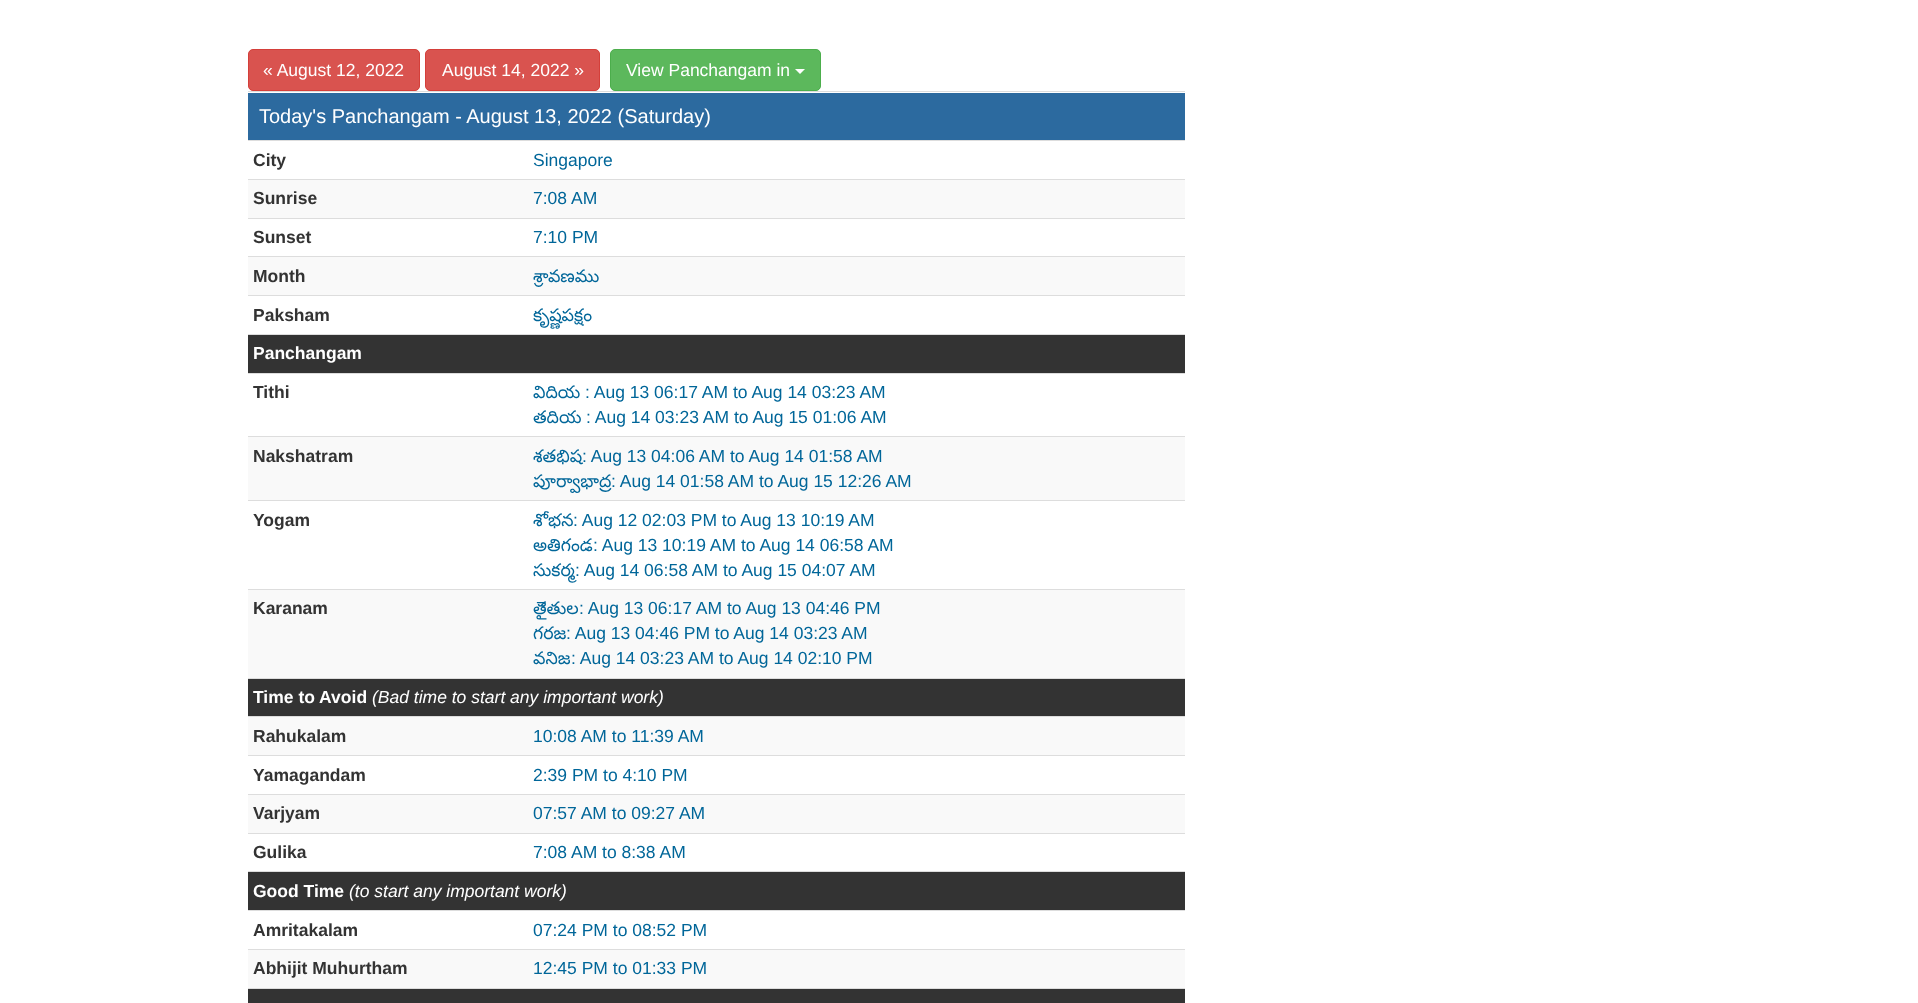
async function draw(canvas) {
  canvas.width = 1918;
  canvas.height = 1003;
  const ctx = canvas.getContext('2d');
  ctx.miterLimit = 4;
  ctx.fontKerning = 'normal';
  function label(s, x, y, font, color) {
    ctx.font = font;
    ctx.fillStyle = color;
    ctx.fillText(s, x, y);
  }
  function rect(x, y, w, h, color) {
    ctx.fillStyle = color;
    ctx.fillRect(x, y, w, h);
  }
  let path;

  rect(0, 0, 1918, 1003, '#fff');
  ctx.fillStyle = '#d9534f';
  ctx.beginPath();
  ctx.roundRect(248.5, 49.5, 171, 41, 4.5);
  ctx.fill();
  ctx.strokeStyle = '#d43f3a';
  ctx.stroke();
  label('« August 12, 2022', 263, 76, '17.5px Liberation Sans', '#fff');
  ctx.fillStyle = '#d9534f';
  ctx.beginPath();
  ctx.roundRect(425.5, 49.5, 174, 41, 4.5);
  ctx.fill();
  ctx.stroke();
  label('August 14, 2022 »', 442, 76, '17.5px Liberation Sans', '#fff');
  ctx.fillStyle = '#5cb85c';
  ctx.beginPath();
  ctx.roundRect(610.5, 49.5, 210, 41, 4.5);
  ctx.fill();
  ctx.strokeStyle = '#4cae4c';
  ctx.stroke();
  label('View Panchangam in', 626, 76, '17.5px Liberation Sans', '#fff');
  path = new Path2D('M795 69H805L800 74Z');
  ctx.fill(path);
  rect(248, 93, 937, 47, '#2c6a9f');
  rect(248, 91, 937, 1, '#ddd');
  label('Today\'s Panchangam - August 13, 2022 (Saturday)', 259, 123, '20px Liberation Sans', '#fff');
  label('City', 253, 166, 'bold 17.5px Liberation Sans', '#333');
  rect(248, 140, 937, 1, '#ddd');
  label('Singapore', 533, 166, '17.5px Liberation Sans', '#069');
  rect(248, 180, 937, 38, '#f9f9f9');
  label('Sunrise', 253, 204, 'bold 17.5px Liberation Sans', '#333');
  rect(248, 179, 937, 1, '#ddd');
  label('7:08 AM', 533, 204, '17.5px Liberation Sans', '#069');
  label('Sunset', 253, 243, 'bold 17.5px Liberation Sans', '#333');
  rect(248, 218, 937, 1, '#ddd');
  label('7:10 PM', 533, 243, '17.5px Liberation Sans', '#069');
  rect(248, 257, 937, 38, '#f9f9f9');
  label('Month', 253, 282, 'bold 17.5px Liberation Sans', '#333');
  rect(248, 256, 937, 1, '#ddd');
  label('శ్రావణము', 533, 282, '17.5px Noto Sans Telugu', '#069');
  label('Paksham', 253, 321, 'bold 17.5px Liberation Sans', '#333');
  rect(248, 295, 937, 1, '#ddd');
  label('కృష్ణపక్షం', 533, 321, '17.5px Noto Sans Telugu', '#069');
  rect(248, 335, 937, 38, '#333');
  rect(248, 334, 937, 1, '#ddd');
  label('Panchangam', 253, 359, 'bold 17.5px Liberation Sans', '#fff');
  label('Tithi', 253, 398, 'bold 17.5px Liberation Sans', '#333');
  rect(248, 373, 937, 1, '#ddd');
  label('విదియ', 533, 398, '17.5px Noto Sans Telugu', '#069');
  label(': Aug 13 06:17 AM to Aug 14 03:23 AM', 585, 398, '17.5px Liberation Sans', '#069');
  label('తదియ', 533, 423, '17.5px Noto Sans Telugu', '#069');
  label(': Aug 14 03:23 AM to Aug 15 01:06 AM', 586, 423, '17.5px Liberation Sans', '#069');
  rect(248, 437, 937, 63, '#f9f9f9');
  label('Nakshatram', 253, 462, 'bold 17.5px Liberation Sans', '#333');
  rect(248, 436, 937, 1, '#ddd');
  label('శతభిష', 533, 462, '17.5px Noto Sans Telugu', '#069');
  label(': Aug 13 04:06 AM to Aug 14 01:58 AM', 582, 462, '17.5px Liberation Sans', '#069');
  label('పూర్వాభాద్ర', 533, 487, '17.5px Noto Sans Telugu', '#069');
  label(': Aug 14 01:58 AM to Aug 15 12:26 AM', 611, 487, '17.5px Liberation Sans', '#069');
  label('Yogam', 253, 526, 'bold 17.5px Liberation Sans', '#333');
  rect(248, 500, 937, 1, '#ddd');
  label('శోభన', 533, 526, '17.5px Noto Sans Telugu', '#069');
  label(': Aug 12 02:03 PM to Aug 13 10:19 AM', 573, 526, '17.5px Liberation Sans', '#069');
  label('అతిగండ', 533, 551, '17.5px Noto Sans Telugu', '#069');
  label(': Aug 13 10:19 AM to Aug 14 06:58 AM', 593, 551, '17.5px Liberation Sans', '#069');
  label('సుకర్మ', 533, 576, '17.5px Noto Sans Telugu', '#069');
  label(': Aug 14 06:58 AM to Aug 15 04:07 AM', 575, 576, '17.5px Liberation Sans', '#069');
  rect(248, 590, 937, 88, '#f9f9f9');
  label('Karanam', 253, 614, 'bold 17.5px Liberation Sans', '#333');
  rect(248, 589, 937, 1, '#ddd');
  label('తైతుల', 533, 614, '17.5px Noto Sans Telugu', '#069');
  label(': Aug 13 06:17 AM to Aug 13 04:46 PM', 579, 614, '17.5px Liberation Sans', '#069');
  label('గరజ', 533, 639, '17.5px Noto Sans Telugu', '#069');
  label(': Aug 13 04:46 PM to Aug 14 03:23 AM', 566, 639, '17.5px Liberation Sans', '#069');
  label('వనిజ', 533, 664, '17.5px Noto Sans Telugu', '#069');
  label(': Aug 14 03:23 AM to Aug 14 02:10 PM', 571, 664, '17.5px Liberation Sans', '#069');
  rect(248, 679, 937, 37, '#333');
  rect(248, 678, 937, 1, '#ddd');
  label('Time to Avoid', 253, 703, 'bold 17.5px Liberation Sans', '#fff');
  label('(Bad time to start any important work)', 372, 703, 'italic 17.5px Liberation Sans', '#fff');
  rect(248, 717, 937, 38, '#f9f9f9');
  label('Rahukalam', 253, 742, 'bold 17.5px Liberation Sans', '#333');
  rect(248, 716, 937, 1, '#ddd');
  label('10:08 AM to 11:39 AM', 533, 742, '17.5px Liberation Sans', '#069');
  label('Yamagandam', 253, 781, 'bold 17.5px Liberation Sans', '#333');
  rect(248, 755, 937, 1, '#ddd');
  label('2:39 PM to 4:10 PM', 533, 781, '17.5px Liberation Sans', '#069');
  rect(248, 795, 937, 38, '#f9f9f9');
  label('Varjyam', 253, 819, 'bold 17.5px Liberation Sans', '#333');
  rect(248, 794, 937, 1, '#ddd');
  label('07:57 AM to 09:27 AM', 533, 819, '17.5px Liberation Sans', '#069');
  label('Gulika', 253, 858, 'bold 17.5px Liberation Sans', '#333');
  rect(248, 833, 937, 1, '#ddd');
  label('7:08 AM to 8:38 AM', 533, 858, '17.5px Liberation Sans', '#069');
  rect(248, 872, 937, 38, '#333');
  rect(248, 871, 937, 1, '#ddd');
  label('Good Time', 253, 897, 'bold 17.5px Liberation Sans', '#fff');
  label('(to start any important work)', 349, 897, 'italic 17.5px Liberation Sans', '#fff');
  label('Amritakalam', 253, 936, 'bold 17.5px Liberation Sans', '#333');
  rect(248, 910, 937, 1, '#ddd');
  label('07:24 PM to 08:52 PM', 533, 936, '17.5px Liberation Sans', '#069');
  rect(248, 950, 937, 38, '#f9f9f9');
  label('Abhijit Muhurtham', 253, 974, 'bold 17.5px Liberation Sans', '#333');
  rect(248, 949, 937, 1, '#ddd');
  label('12:45 PM to 01:33 PM', 533, 974, '17.5px Liberation Sans', '#069');
  rect(248, 989, 937, 14, '#333');
  rect(248, 988, 937, 1, '#ddd');
}

draw(document.querySelector('canvas'));
